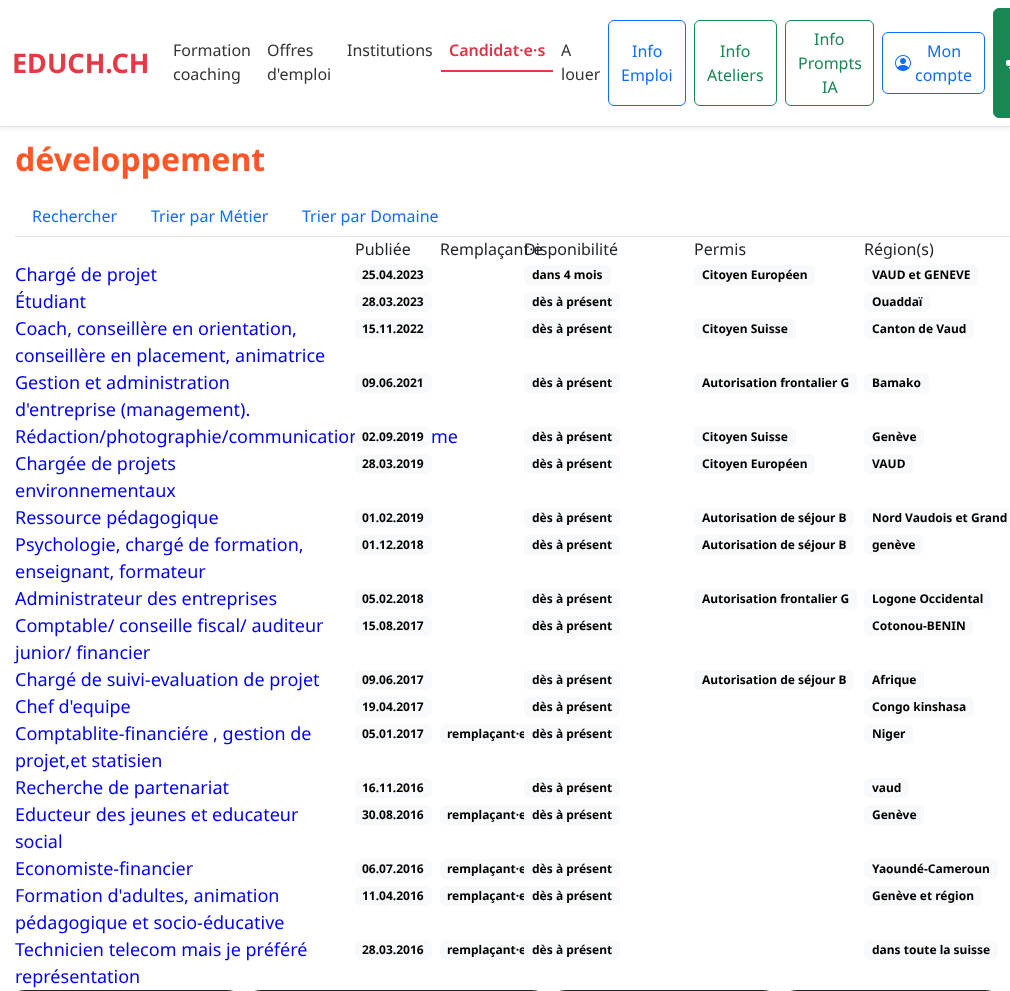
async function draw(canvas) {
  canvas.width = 1010;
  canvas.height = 991;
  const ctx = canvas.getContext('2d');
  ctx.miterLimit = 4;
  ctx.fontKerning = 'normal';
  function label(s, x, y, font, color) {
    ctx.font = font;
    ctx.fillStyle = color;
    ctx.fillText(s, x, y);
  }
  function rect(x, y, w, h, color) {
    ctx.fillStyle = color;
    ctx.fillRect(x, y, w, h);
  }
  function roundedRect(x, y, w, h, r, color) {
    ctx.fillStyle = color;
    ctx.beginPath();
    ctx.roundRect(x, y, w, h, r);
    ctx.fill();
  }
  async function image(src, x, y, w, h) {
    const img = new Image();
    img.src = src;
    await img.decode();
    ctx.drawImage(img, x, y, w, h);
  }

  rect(0, 0, 1010, 991, '#fff');
  ctx.fillStyle = '#21252912';
  ctx.filter = 'blur(2px)';
  ctx.beginPath();
  ctx.rect(0, 2, 1010, 127);
  ctx.fill();
  ctx.filter = 'none';
  rect(0, 0, 1010, 126, '#fff');
  rect(0, 126, 1010, 1, '#dee2e6');
  label('EDUCH.CH', 12, 73, 'bold 27px Noto Sans', '#e63946');
  label('Formation', 173, 56, '16px Noto Sans', '#333');
  label('coaching', 173, 80, '16px Noto Sans', '#333');
  label('Offres', 267, 56, '16px Noto Sans', '#333');
  label('d\'emploi', 267, 80, '16px Noto Sans', '#333');
  label('Institutions', 347, 56, '16px Noto Sans', '#333');
  rect(441, 70, 112, 2, '#e63946');
  label('Candidat·e·s', 449, 56, '600 16px Noto Sans', '#dc3545');
  label('A', 561, 56, '16px Noto Sans', '#333');
  label('louer', 561, 80, '16px Noto Sans', '#333');
  ctx.beginPath();
  ctx.roundRect(608.5, 20.5, 77, 85, 5.5);
  ctx.strokeStyle = '#0d6efd';
  ctx.stroke();
  label('Info', 632, 57, '16px Noto Sans', '#0d6efd');
  label('Emploi', 621, 81, '16px Noto Sans', '#0d6efd');
  ctx.beginPath();
  ctx.roundRect(694.5, 20.5, 82, 85, 5.5);
  ctx.strokeStyle = '#198754';
  ctx.stroke();
  label('Info', 720, 57, '16px Noto Sans', '#198754');
  label('Ateliers', 707, 81, '16px Noto Sans', '#198754');
  ctx.beginPath();
  ctx.roundRect(785.5, 20.5, 88, 85, 5.5);
  ctx.stroke();
  label('Info', 814, 45, '16px Noto Sans', '#198754');
  label('Prompts', 798, 69, '16px Noto Sans', '#198754');
  label('IA', 822, 93, '16px Noto Sans', '#198754');
  ctx.beginPath();
  ctx.roundRect(882.5, 32.5, 102, 61, 5.5);
  ctx.strokeStyle = '#0d6efd';
  ctx.stroke();
  label('Mon', 927, 57, '16px Noto Sans', '#0d6efd');
  await image('assets/img1.png', 895, 55, 16, 16);
  label('compte', 915, 81, '16px Noto Sans', '#0d6efd');
  ctx.fillStyle = '#198754';
  ctx.beginPath();
  ctx.roundRect(993.5, 8.5, 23, 109, 5.5);
  ctx.fill();
  ctx.strokeStyle = '#198754';
  ctx.stroke();
  await image('assets/img2.png', 1006, 60, 4, 10);
  label('développement', 15, 171, 'bold 32px Noto Sans', '#fe5626');
  rect(15, 236, 995, 1, '#dee2e6');
  label('Rechercher', 32, 222, '16px Noto Sans', '#0d6efd');
  label('Trier par Métier', 151, 222, '16px Noto Sans', '#0d6efd');
  label('Trier par Domaine', 302, 222, '16px Noto Sans', '#0d6efd');
  label('Publiée', 355, 255, '16px Noto Sans', '#212529');
  label('Remplaçant·e', 440, 255, '16px Noto Sans', '#212529');
  label('Disponibilité', 524, 255, '16px Noto Sans', '#212529');
  label('Permis', 694, 255, '16px Noto Sans', '#212529');
  label('Région(s)', 864, 255, '16px Noto Sans', '#212529');
  label('Chargé de projet', 15, 281, '18px Noto Sans', '#00e');
  roundedRect(355, 265, 77, 20, 6, '#f8f9fa');
  label('25.04.2023', 362, 279, 'bold 12px Noto Sans', '#000');
  roundedRect(524, 265, 87, 20, 6, '#f8f9fa');
  label('dans 4 mois', 532, 279, 'bold 12px Noto Sans', '#000');
  roundedRect(694, 265, 121, 20, 6, '#f8f9fa');
  label('Citoyen Européen', 702, 279, 'bold 12px Noto Sans', '#000');
  roundedRect(864, 265, 114, 20, 6, '#f8f9fa');
  label('VAUD et GENEVE', 872, 279, 'bold 12px Noto Sans', '#000');
  label('Étudiant', 15, 308, '18px Noto Sans', '#00e');
  roundedRect(355, 292, 77, 20, 6, '#f8f9fa');
  label('28.03.2023', 362, 306, 'bold 12px Noto Sans', '#000');
  roundedRect(524, 292, 96, 20, 6, '#f8f9fa');
  label('dès à présent', 532, 306, 'bold 12px Noto Sans', '#000');
  roundedRect(864, 292, 66, 20, 6, '#f8f9fa');
  label('Ouaddaï', 872, 306, 'bold 12px Noto Sans', '#000');
  label('Coach, conseillère en orientation,', 15, 335, '18px Noto Sans', '#00e');
  label('conseillère en placement, animatrice', 15, 362, '18px Noto Sans', '#00e');
  roundedRect(355, 319, 77, 20, 6, '#f8f9fa');
  label('15.11.2022', 362, 333, 'bold 12px Noto Sans', '#000');
  roundedRect(524, 319, 96, 20, 6, '#f8f9fa');
  label('dès à présent', 532, 333, 'bold 12px Noto Sans', '#000');
  roundedRect(694, 319, 102, 20, 6, '#f8f9fa');
  label('Citoyen Suisse', 702, 333, 'bold 12px Noto Sans', '#000');
  roundedRect(864, 319, 110, 20, 6, '#f8f9fa');
  label('Canton de Vaud', 872, 333, 'bold 12px Noto Sans', '#000');
  label('Gestion et administration', 15, 389, '18px Noto Sans', '#00e');
  label('d\'entreprise (management).', 15, 416, '18px Noto Sans', '#00e');
  roundedRect(355, 373, 77, 20, 6, '#f8f9fa');
  label('09.06.2021', 362, 387, 'bold 12px Noto Sans', '#000');
  roundedRect(524, 373, 96, 20, 6, '#f8f9fa');
  label('dès à présent', 532, 387, 'bold 12px Noto Sans', '#000');
  roundedRect(694, 373, 163, 20, 6, '#f8f9fa');
  label('Autorisation frontalier G', 702, 387, 'bold 12px Noto Sans', '#000');
  roundedRect(864, 373, 65, 20, 6, '#f8f9fa');
  label('Bamako', 872, 387, 'bold 12px Noto Sans', '#000');
  label('Rédaction/photographie/communication', 15, 443, '18px Noto Sans', '#00e');
  label('me', 431, 443, '18px Noto Sans', '#00e');
  roundedRect(524, 427, 96, 20, 6, '#f8f9fa');
  label('dès à présent', 532, 441, 'bold 12px Noto Sans', '#000');
  roundedRect(694, 427, 102, 20, 6, '#f8f9fa');
  label('Citoyen Suisse', 702, 441, 'bold 12px Noto Sans', '#000');
  roundedRect(864, 427, 60, 20, 6, '#f8f9fa');
  label('Genève', 872, 441, 'bold 12px Noto Sans', '#000');
  roundedRect(355, 427, 77, 20, 6, '#f8f9fa');
  label('02.09.2019', 362, 441, 'bold 12px Noto Sans', '#000');
  label('Chargée de projets', 15, 470, '18px Noto Sans', '#00e');
  label('environnementaux', 15, 497, '18px Noto Sans', '#00e');
  roundedRect(355, 454, 77, 20, 6, '#f8f9fa');
  label('28.03.2019', 362, 468, 'bold 12px Noto Sans', '#000');
  roundedRect(524, 454, 96, 20, 6, '#f8f9fa');
  label('dès à présent', 532, 468, 'bold 12px Noto Sans', '#000');
  roundedRect(694, 454, 121, 20, 6, '#f8f9fa');
  label('Citoyen Européen', 702, 468, 'bold 12px Noto Sans', '#000');
  roundedRect(864, 454, 49, 20, 6, '#f8f9fa');
  label('VAUD', 872, 468, 'bold 12px Noto Sans', '#000');
  label('Ressource pédagogique', 15, 524, '18px Noto Sans', '#00e');
  roundedRect(355, 508, 77, 20, 6, '#f8f9fa');
  label('01.02.2019', 362, 522, 'bold 12px Noto Sans', '#000');
  roundedRect(524, 508, 96, 20, 6, '#f8f9fa');
  label('dès à présent', 532, 522, 'bold 12px Noto Sans', '#000');
  roundedRect(694, 508, 160, 20, 6, '#f8f9fa');
  label('Autorisation de séjour B', 702, 522, 'bold 12px Noto Sans', '#000');
  roundedRect(864, 508, 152, 20, 6, '#f8f9fa');
  label('Nord Vaudois et Grand', 872, 522, 'bold 12px Noto Sans', '#000');
  label('Psychologie, chargé de formation,', 15, 551, '18px Noto Sans', '#00e');
  label('enseignant, formateur', 15, 578, '18px Noto Sans', '#00e');
  roundedRect(355, 535, 77, 20, 6, '#f8f9fa');
  label('01.12.2018', 362, 549, 'bold 12px Noto Sans', '#000');
  roundedRect(524, 535, 96, 20, 6, '#f8f9fa');
  label('dès à présent', 532, 549, 'bold 12px Noto Sans', '#000');
  roundedRect(694, 535, 160, 20, 6, '#f8f9fa');
  label('Autorisation de séjour B', 702, 549, 'bold 12px Noto Sans', '#000');
  roundedRect(864, 535, 59, 20, 6, '#f8f9fa');
  label('genève', 872, 549, 'bold 12px Noto Sans', '#000');
  label('Administrateur des entreprises', 15, 605, '18px Noto Sans', '#00e');
  roundedRect(355, 589, 77, 20, 6, '#f8f9fa');
  label('05.02.2018', 362, 603, 'bold 12px Noto Sans', '#000');
  roundedRect(524, 589, 96, 20, 6, '#f8f9fa');
  label('dès à présent', 532, 603, 'bold 12px Noto Sans', '#000');
  roundedRect(694, 589, 163, 20, 6, '#f8f9fa');
  label('Autorisation frontalier G', 702, 603, 'bold 12px Noto Sans', '#000');
  roundedRect(864, 589, 127, 20, 6, '#f8f9fa');
  label('Logone Occidental', 872, 603, 'bold 12px Noto Sans', '#000');
  label('Comptable/ conseille fiscal/ auditeur', 15, 632, '18px Noto Sans', '#00e');
  label('junior/ financier', 15, 659, '18px Noto Sans', '#00e');
  roundedRect(355, 616, 77, 20, 6, '#f8f9fa');
  label('15.08.2017', 362, 630, 'bold 12px Noto Sans', '#000');
  roundedRect(524, 616, 96, 20, 6, '#f8f9fa');
  label('dès à présent', 532, 630, 'bold 12px Noto Sans', '#000');
  roundedRect(864, 616, 109, 20, 6, '#f8f9fa');
  label('Cotonou-BENIN', 872, 630, 'bold 12px Noto Sans', '#000');
  label('Chargé de suivi-evaluation de projet', 15, 686, '18px Noto Sans', '#00e');
  roundedRect(355, 670, 77, 20, 6, '#f8f9fa');
  label('09.06.2017', 362, 684, 'bold 12px Noto Sans', '#000');
  roundedRect(524, 670, 96, 20, 6, '#f8f9fa');
  label('dès à présent', 532, 684, 'bold 12px Noto Sans', '#000');
  roundedRect(694, 670, 160, 20, 6, '#f8f9fa');
  label('Autorisation de séjour B', 702, 684, 'bold 12px Noto Sans', '#000');
  roundedRect(864, 670, 60, 20, 6, '#f8f9fa');
  label('Afrique', 872, 684, 'bold 12px Noto Sans', '#000');
  label('Chef d\'equipe', 15, 713, '18px Noto Sans', '#00e');
  roundedRect(355, 697, 77, 20, 6, '#f8f9fa');
  label('19.04.2017', 362, 711, 'bold 12px Noto Sans', '#000');
  roundedRect(524, 697, 96, 20, 6, '#f8f9fa');
  label('dès à présent', 532, 711, 'bold 12px Noto Sans', '#000');
  roundedRect(864, 697, 110, 20, 6, '#f8f9fa');
  label('Congo kinshasa', 872, 711, 'bold 12px Noto Sans', '#000');
  label('Comptablite-financiére , gestion de', 15, 740, '18px Noto Sans', '#00e');
  label('projet,et statisien', 15, 767, '18px Noto Sans', '#00e');
  roundedRect(355, 724, 77, 20, 6, '#f8f9fa');
  label('05.01.2017', 362, 738, 'bold 12px Noto Sans', '#000');
  roundedRect(440, 724, 94, 20, 6, '#f8f9fa');
  label('remplaçant·e', 447, 738, 'bold 12px Noto Sans', '#000');
  roundedRect(524, 724, 96, 20, 6, '#f8f9fa');
  label('dès à présent', 532, 738, 'bold 12px Noto Sans', '#000');
  roundedRect(864, 724, 49, 20, 6, '#f8f9fa');
  label('Niger', 872, 738, 'bold 12px Noto Sans', '#000');
  label('Recherche de partenariat', 15, 794, '18px Noto Sans', '#00e');
  roundedRect(355, 778, 77, 20, 6, '#f8f9fa');
  label('16.11.2016', 362, 792, 'bold 12px Noto Sans', '#000');
  roundedRect(524, 778, 96, 20, 6, '#f8f9fa');
  label('dès à présent', 532, 792, 'bold 12px Noto Sans', '#000');
  roundedRect(864, 778, 45, 20, 6, '#f8f9fa');
  label('vaud', 872, 792, 'bold 12px Noto Sans', '#000');
  label('Educteur des jeunes et educateur', 15, 821, '18px Noto Sans', '#00e');
  label('social', 15, 848, '18px Noto Sans', '#00e');
  roundedRect(355, 805, 77, 20, 6, '#f8f9fa');
  label('30.08.2016', 362, 819, 'bold 12px Noto Sans', '#000');
  roundedRect(440, 805, 94, 20, 6, '#f8f9fa');
  label('remplaçant·e', 447, 819, 'bold 12px Noto Sans', '#000');
  roundedRect(524, 805, 96, 20, 6, '#f8f9fa');
  label('dès à présent', 532, 819, 'bold 12px Noto Sans', '#000');
  roundedRect(864, 805, 60, 20, 6, '#f8f9fa');
  label('Genève', 872, 819, 'bold 12px Noto Sans', '#000');
  label('Economiste-financier', 15, 875, '18px Noto Sans', '#00e');
  roundedRect(355, 859, 77, 20, 6, '#f8f9fa');
  label('06.07.2016', 362, 873, 'bold 12px Noto Sans', '#000');
  roundedRect(440, 859, 94, 20, 6, '#f8f9fa');
  label('remplaçant·e', 447, 873, 'bold 12px Noto Sans', '#000');
  roundedRect(524, 859, 96, 20, 6, '#f8f9fa');
  label('dès à présent', 532, 873, 'bold 12px Noto Sans', '#000');
  roundedRect(864, 859, 134, 20, 6, '#f8f9fa');
  label('Yaoundé-Cameroun', 872, 873, 'bold 12px Noto Sans', '#000');
  label('Formation d\'adultes, animation', 15, 902, '18px Noto Sans', '#00e');
  label('pédagogique et socio-éducative', 15, 929, '18px Noto Sans', '#00e');
  roundedRect(355, 886, 77, 20, 6, '#f8f9fa');
  label('11.04.2016', 362, 900, 'bold 12px Noto Sans', '#000');
  roundedRect(440, 886, 94, 20, 6, '#f8f9fa');
  label('remplaçant·e', 447, 900, 'bold 12px Noto Sans', '#000');
  roundedRect(524, 886, 96, 20, 6, '#f8f9fa');
  label('dès à présent', 532, 900, 'bold 12px Noto Sans', '#000');
  roundedRect(864, 886, 118, 20, 6, '#f8f9fa');
  label('Genève et région', 872, 900, 'bold 12px Noto Sans', '#000');
  label('Technicien telecom mais je préféré', 15, 956, '18px Noto Sans', '#00e');
  label('représentation', 15, 983, '18px Noto Sans', '#00e');
  roundedRect(355, 940, 77, 20, 6, '#f8f9fa');
  label('28.03.2016', 362, 954, 'bold 12px Noto Sans', '#000');
  roundedRect(440, 940, 94, 20, 6, '#f8f9fa');
  label('remplaçant·e', 447, 954, 'bold 12px Noto Sans', '#000');
  roundedRect(524, 940, 96, 20, 6, '#f8f9fa');
  label('dès à présent', 532, 954, 'bold 12px Noto Sans', '#000');
  roundedRect(864, 940, 134, 20, 6, '#f8f9fa');
  label('dans toute la suisse', 872, 954, 'bold 12px Noto Sans', '#000');
  ctx.beginPath();
  ctx.roundRect(12.5, 990.5, 227, 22, 20.5);
  ctx.strokeStyle = '#212529';
  ctx.stroke();
  ctx.beginPath();
  ctx.roundRect(248.5, 990.5, 296, 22, 20.5);
  ctx.stroke();
  ctx.beginPath();
  ctx.roundRect(553.5, 990.5, 222, 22, 20.5);
  ctx.stroke();
  ctx.beginPath();
  ctx.roundRect(784.5, 990.5, 213, 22, 20.5);
  ctx.stroke();
}

draw(document.querySelector('canvas'));
